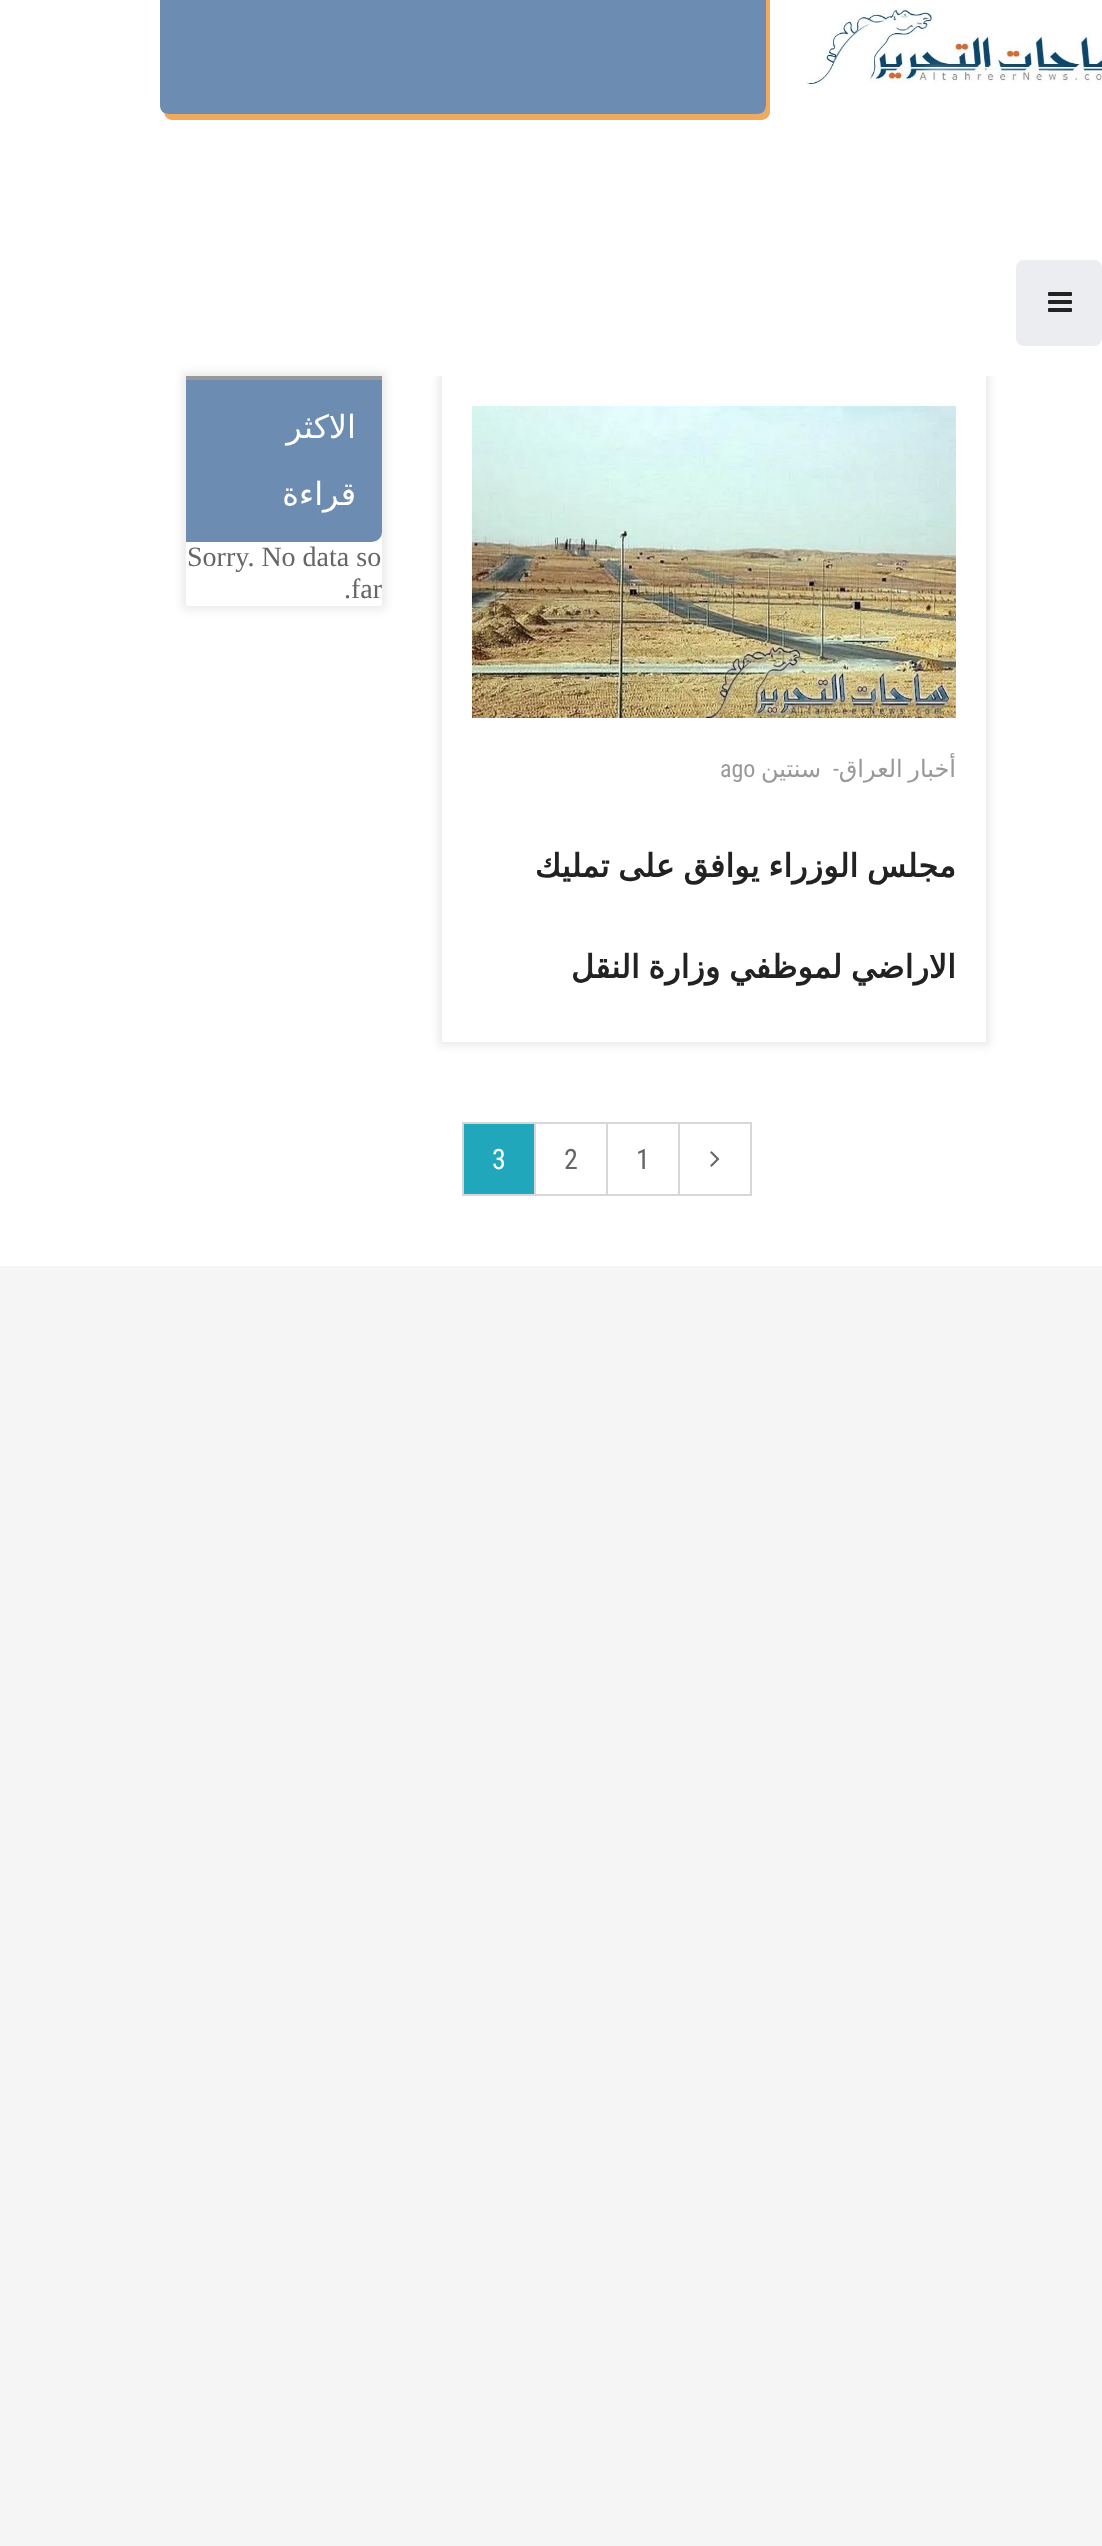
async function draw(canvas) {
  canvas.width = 1102;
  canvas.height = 2546;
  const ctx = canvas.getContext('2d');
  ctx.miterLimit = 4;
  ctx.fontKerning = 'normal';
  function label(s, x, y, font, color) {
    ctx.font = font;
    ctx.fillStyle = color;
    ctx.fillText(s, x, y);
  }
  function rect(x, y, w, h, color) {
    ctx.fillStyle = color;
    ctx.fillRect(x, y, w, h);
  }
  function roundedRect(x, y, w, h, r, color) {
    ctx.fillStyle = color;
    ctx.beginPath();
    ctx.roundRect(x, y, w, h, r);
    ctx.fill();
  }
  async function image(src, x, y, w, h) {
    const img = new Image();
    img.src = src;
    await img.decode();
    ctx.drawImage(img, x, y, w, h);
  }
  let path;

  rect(0, 0, 1102, 2546, '#f5f5f5');
  rect(0, 0, 1102, 1266, '#fff');
  ctx.fillStyle = '#f1a960';
  path = new Path2D('M164 113C165 117 168 120 172 120H762C766 120 770 116 770 112V-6C770-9 768-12 766-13V106C766 110 762 114 758 114H168C167 114 165 114 164 113Z');
  ctx.fill(path);
  ctx.fillStyle = '#6d8cb1';
  ctx.beginPath();
  ctx.roundRect(160, 0, 606, 114, [0, 0, 8, 8]);
  ctx.fill();
  roundedRect(1016, 260, 86, 86, 8, '#ecedf1');
  await image('assets/img1.png', 1048, 292, 24, 20);
  await image('assets/img2.png', 806, 8, 296, 76);
  ctx.save();
  path = new Path2D('M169 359H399V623H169ZM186 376H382V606H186Z');
  ctx.clip(path, 'evenodd');
  ctx.fillStyle = '#ebebeb';
  ctx.filter = 'blur(4px)';
  ctx.beginPath();
  ctx.rect(182, 372, 204, 238);
  ctx.fill();
  ctx.filter = 'none';
  ctx.restore();
  ctx.fillStyle = '#6d8cb2';
  ctx.beginPath();
  ctx.roundRect(186, 376, 196, 166, [0, 0, 10, 0]);
  ctx.fill();
  rect(186, 376, 196, 4, '#98999b');
  ctx.direction = 'rtl';
  label('الاكثر', 356, 438, '32px DejaVu Sans', '#fff');
  label('قراءة', 356, 505, '32px DejaVu Sans', '#fff');
  ctx.direction = 'ltr';
  label('Sorry. No data so', 187, 566, '28px Liberation Serif', '#666');
  label('.far', 344, 598, '28px Liberation Serif', '#666');
  ctx.save();
  ctx.beginPath();
  ctx.rect(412, 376, 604, 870);
  ctx.clip();
  path = new Path2D('M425 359H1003V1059H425ZM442 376H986V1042H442Z');
  ctx.clip(path, 'evenodd');
  ctx.fillStyle = '#ebebeb';
  ctx.filter = 'blur(4px)';
  ctx.beginPath();
  ctx.rect(438, 372, 552, 674);
  ctx.fill();
  ctx.filter = 'none';
  ctx.restore();
  await image('assets/img3.png', 471, 406, 485, 312);
  ctx.wordSpacing = '-2px';
  ctx.direction = 'rtl';
  label('أخبار العراق', 956, 777, '24px DejaVu Sans', '#999');
  ctx.wordSpacing = '0px';
  ctx.direction = 'ltr';
  label('-', 833, 777, '24px Roboto Condensed', '#999');
  ctx.direction = 'rtl';
  label('سنتين', 821, 777, '24px DejaVu Sans', '#999');
  ctx.direction = 'ltr';
  label('ago', 720, 777, '24px Roboto Condensed', '#999');
  ctx.wordSpacing = '-1.5px';
  ctx.direction = 'rtl';
  label('مجلس الوزراء يوافق على تمليك', 956, 877, 'bold 32px DejaVu Sans', '#222');
  label('الاراضي لموظفي وزارة النقل', 956, 978, 'bold 32px DejaVu Sans', '#222');
  ctx.strokeStyle = '#d7d7d7';
  ctx.lineWidth = 2;
  ctx.strokeRect(679, 1123, 72, 72);
  await image('assets/img4.png', 710, 1151, 10, 16);
  rect(462, 1122, 216, 2, '#d7d7d7');
  rect(462, 1194, 216, 2, '#d7d7d7');
  rect(606, 1122, 2, 74, '#d7d7d7');
  ctx.wordSpacing = '0px';
  ctx.direction = 'ltr';
  label('1', 636, 1169, '28px Roboto Condensed', '#666');
  rect(534, 1122, 2, 74, '#d7d7d7');
  label('2', 564, 1169, '28px Roboto Condensed', '#666');
  rect(462, 1122, 2, 74, '#d7d7d7');
  rect(464, 1124, 70, 70, '#20a7bb');
  label('3', 492, 1169, '28px Roboto Condensed', '#fff');
}

draw(document.querySelector('canvas'));
